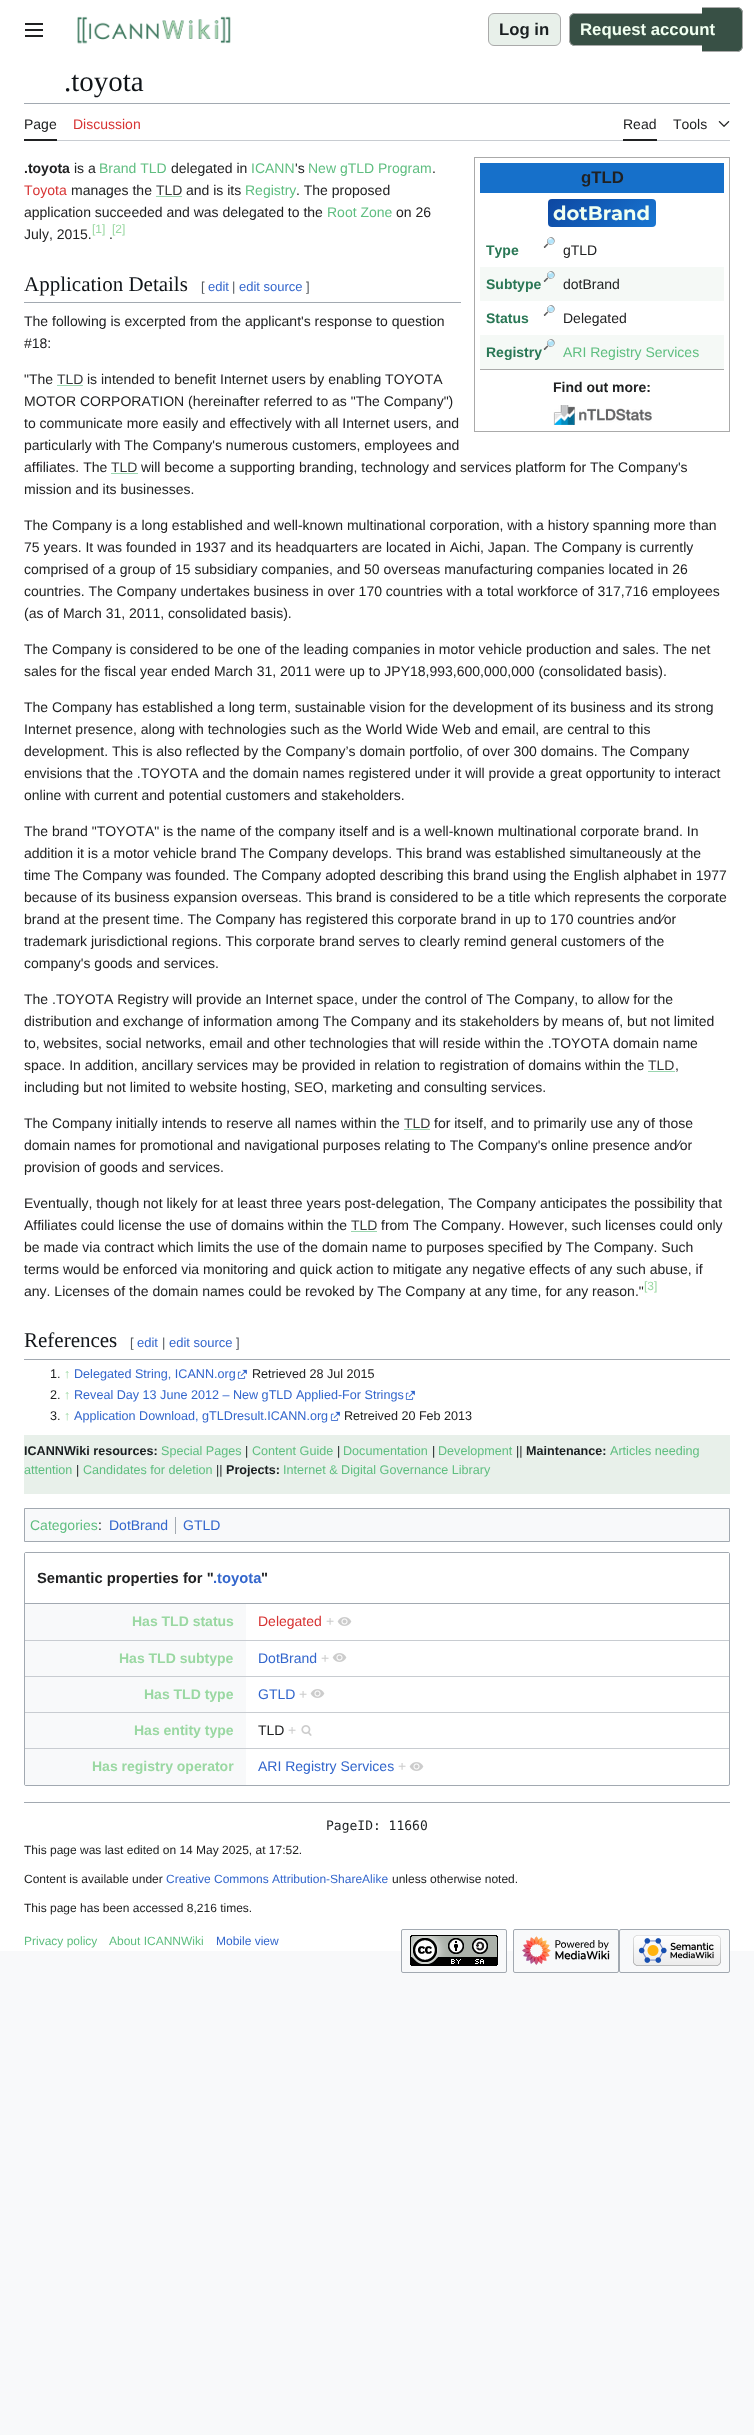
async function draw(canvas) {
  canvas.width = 754;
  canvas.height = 2435;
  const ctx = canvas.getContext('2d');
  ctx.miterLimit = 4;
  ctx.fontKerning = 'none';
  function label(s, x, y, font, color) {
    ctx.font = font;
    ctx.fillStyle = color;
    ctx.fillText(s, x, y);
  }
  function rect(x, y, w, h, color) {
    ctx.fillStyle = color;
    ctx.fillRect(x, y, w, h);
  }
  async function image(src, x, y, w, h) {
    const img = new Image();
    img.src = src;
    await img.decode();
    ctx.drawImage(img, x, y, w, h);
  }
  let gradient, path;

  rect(0, 0, 754, 2435, '#f8f9fa');
  rect(0, 0, 754, 60, '#fff');
  await image('assets/img1.png', 25, 23, 18, 14);
  await image('assets/img2.png', 77, 16, 154, 28);
  ctx.fillStyle = '#e8f0ea';
  ctx.beginPath();
  ctx.roundRect(488.5, 13.5, 72, 32, 5.5);
  ctx.fill();
  ctx.strokeStyle = '#aaa';
  ctx.stroke();
  label('Log in', 499, 35, 'bold 16.75px Liberation Sans', '#1a1f21');
  ctx.fillStyle = '#385045';
  ctx.beginPath();
  ctx.roundRect(569, 13, 146, 33, [6, 0, 0, 6]);
  ctx.fill();
  ctx.fillStyle = '#aaa';
  path = new Path2D('M575 13H715V46H575C572 46 569 43 569 40V19C569 16 572 13 575 13ZM575 14H715V45H575C572 45 570 43 570 40V19C570 16 572 14 575 14Z');
  ctx.fill(path, 'evenodd');
  ctx.fillStyle = '#385045';
  ctx.beginPath();
  ctx.roundRect(702, 7, 41, 45, [0, 6, 6, 0]);
  ctx.fill();
  ctx.fillStyle = '#aaa';
  path = new Path2D('M702 7H737C740 7 743 10 743 13V46C743 49 740 52 737 52H702ZM702 8H737C740 8 742 10 742 13V46C742 49 740 51 737 51H702Z');
  ctx.fill(path, 'evenodd');
  label('Request account', 580, 35, 'bold 16.75px Liberation Sans', '#f0fff0');
  rect(0, 60, 754, 1891, '#fff');
  label('.toyota', 64, 91, '29px Liberation Serif', '#101418');
  rect(24, 103, 706, 1, '#a2a9b1');
  rect(57, 140, 673, 1, '#c8ccd1');
  rect(24, 139, 33, 2, '#202122');
  label('Page', 24, 129, '14px Liberation Sans', '#202122');
  label('Discussion', 73, 129, '14px Liberation Sans', '#d73333');
  rect(623, 139, 34, 2, '#202122');
  label('Read', 623, 129, '14px Liberation Sans', '#202122');
  label('Tools', 673, 129, '14px Liberation Sans', '#202122');
  await image('assets/img3.png', 718, 121, 12, 6);
  label('.toyota', 24, 173, 'bold 14px Liberation Sans', '#202122');
  label('is a', 74, 173, '14px Liberation Sans', '#202122');
  label('Brand TLD', 99, 173, '14px Liberation Sans', '#5fbe80');
  label('delegated in', 171, 173, '14px Liberation Sans', '#202122');
  label('ICANN', 251, 173, '14px Liberation Sans', '#5fbe80');
  label('\'s', 295, 173, '14px Liberation Sans', '#202122');
  label('New gTLD Program', 308, 173, '14px Liberation Sans', '#5fbe80');
  label('.', 432, 173, '14px Liberation Sans', '#202122');
  label('Toyota', 24, 195, '14px Liberation Sans', '#d73333');
  label('manages the', 71, 195, '14px Liberation Sans', '#202122');
  label('TLD', 156, 195, '14px Liberation Sans', '#363738');
  rect(156, 196, 26, 1, '#9ad6af');
  label('and is its', 186, 195, '14px Liberation Sans', '#202122');
  label('Registry', 245, 195, '14px Liberation Sans', '#5fbe80');
  label('. The proposed', 296, 195, '14px Liberation Sans', '#202122');
  label('application succeeded and was delegated to the', 24, 217, '14px Liberation Sans', '#202122');
  label('Root Zone', 327, 217, '14px Liberation Sans', '#5fbe80');
  label('on 26', 396, 217, '14px Liberation Sans', '#202122');
  label('July, 2015.', 24, 239, '14px Liberation Sans', '#202122');
  label('[1]', 92, 233, '12px Liberation Sans', '#9ad8a2');
  label('.', 109, 239, '14px Liberation Sans', '#202122');
  label('[2]', 112, 233, '12px Liberation Sans', '#9ad8a2');
  ctx.strokeRect(474.5, 157.5, 255, 274);
  rect(480, 163, 244, 30, '#1670ca');
  label('gTLD', 581, 183, 'bold 16.75px Liberation Sans', '#202122');
  gradient = ctx.createLinearGradient(568, 179, 636, 247);
  gradient.addColorStop(0, '#0d47a1');
  gradient.addColorStop(1, '#1976d2');
  ctx.fillStyle = gradient;
  ctx.beginPath();
  ctx.roundRect(548, 199, 108, 28, 4);
  ctx.fill();
  label('dotBrand', 553, 220, 'bold 19.5px Montserrat', '#f0fff0');
  label('🔎', 543, 246, '10px Noto Color Emoji', '#909091');
  label('Type', 486, 255, 'bold 14px Liberation Sans', '#297755');
  label('gTLD', 563, 255, '14px Liberation Sans', '#202122');
  rect(480, 267, 244, 34, '#f5f9f6');
  label('🔎', 543, 280, '10px Noto Color Emoji', '#909091');
  label('Subtype', 486, 289, 'bold 14px Liberation Sans', '#297755');
  label('dotBrand', 563, 289, '14px Liberation Sans', '#202122');
  label('🔎', 543, 314, '10px Noto Color Emoji', '#909091');
  label('Status', 486, 323, 'bold 14px Liberation Sans', '#297755');
  label('Delegated', 563, 323, '14px Liberation Sans', '#202122');
  rect(480, 335, 244, 34, '#f5f9f6');
  label('🔎', 543, 348, '10px Noto Color Emoji', '#909091');
  label('Registry', 486, 357, 'bold 14px Liberation Sans', '#297755');
  label('ARI Registry Services', 563, 357, '14px Liberation Sans', '#5fbe80');
  rect(480, 369, 244, 1, '#aaa');
  label('Find out more:', 553, 392, 'bold 14px Liberation Sans', '#202122');
  await image('assets/img4.png', 553, 405, 99, 20);
  rect(24, 302, 437, 1, '#a2a9b1');
  label('Application Details', 24, 291, '21px Liberation Serif', '#101418');
  label('[', 201, 291, '13px Liberation Sans', '#54595d');
  label('edit', 208, 291, '13px Liberation Sans', '#36c');
  label('|', 232, 291, '13px Liberation Sans', '#54595d');
  label('edit source', 239, 291, '13px Liberation Sans', '#36c');
  label(']', 306, 291, '13px Liberation Sans', '#54595d');
  label('The following is excerpted from the applicant\'s response to question', 24, 326, '14px Liberation Sans', '#202122');
  label('#18:', 24, 348, '14px Liberation Sans', '#202122');
  label('"The', 24, 384, '14px Liberation Sans', '#202122');
  label('TLD', 57, 384, '14px Liberation Sans', '#363738');
  rect(57, 385, 26, 1, '#9ad6af');
  label('is intended to benefit Internet users by enabling TOYOTA', 87, 384, '14px Liberation Sans', '#202122');
  label('MOTOR CORPORATION (hereinafter referred to as ʺThe Companyʺ)', 24, 406, '14px Liberation Sans', '#202122');
  label('to communicate more easily and effectively with all Internet users, and', 24, 428, '14px Liberation Sans', '#202122');
  label('particularly with The Companyʹs numerous customers, employees and', 24, 450, '14px Liberation Sans', '#202122');
  label('affiliates. The', 24, 472, '14px Liberation Sans', '#202122');
  label('TLD', 111, 472, '14px Liberation Sans', '#363738');
  rect(111, 473, 27, 1, '#9ad6af');
  label('will become a supporting branding, technology and services platform for The Companyʹs', 141, 472, '14px Liberation Sans', '#202122');
  label('mission and its businesses.', 24, 494, '14px Liberation Sans', '#202122');
  label('The Company is a long established and well-known multinational corporation, with a history spanning more than', 24, 530, '14px Liberation Sans', '#202122');
  label('75 years. It was founded in 1937 and its headquarters are located in Aichi, Japan. The Company is currently', 24, 552, '14px Liberation Sans', '#202122');
  label('comprised of a group of 15 subsidiary companies, and 50 overseas manufacturing companies located in 26', 24, 574, '14px Liberation Sans', '#202122');
  label('countries. The Company undertakes business in over 170 countries with a total workforce of 317,716 employees', 24, 596, '14px Liberation Sans', '#202122');
  label('(as of March 31, 2011, consolidated basis).', 24, 618, '14px Liberation Sans', '#202122');
  label('The Company is considered to be one of the leading companies in motor vehicle production and sales. The net', 24, 654, '14px Liberation Sans', '#202122');
  label('sales for the fiscal year ended March 31, 2011 were up to JPY18,993,600,000,000 (consolidated basis).', 24, 676, '14px Liberation Sans', '#202122');
  label('The Company has established a long term, sustainable vision for the development of its business and its strong', 24, 712, '14px Liberation Sans', '#202122');
  label('Internet presence, along with technologies such as the World Wide Web and email, are central to this', 24, 734, '14px Liberation Sans', '#202122');
  label('development. This is also reflected by the Company’s domain portfolio, of over 300 domains. The Company', 24, 756, '14px Liberation Sans', '#202122');
  label('envisions that the .TOYOTA and the domain names registered under it will provide a great opportunity to interact', 24, 778, '14px Liberation Sans', '#202122');
  label('online with current and potential customers and stakeholders.', 24, 800, '14px Liberation Sans', '#202122');
  label('The brand ʺTOYOTAʺ is the name of the company itself and is a well-known multinational corporate brand. In', 24, 836, '14px Liberation Sans', '#202122');
  label('addition it is a motor vehicle brand The Company develops. This brand was established simultaneously at the', 24, 858, '14px Liberation Sans', '#202122');
  label('time The Company was founded. The Company adopted describing this brand using the English alphabet in 1977', 24, 880, '14px Liberation Sans', '#202122');
  label('because of its business expansion overseas. This brand is considered to be a title which represents the corporate', 24, 902, '14px Liberation Sans', '#202122');
  label('brand at the present time. The Company has registered this corporate brand in up to 170 countries and⁄or', 24, 924, '14px Liberation Sans', '#202122');
  label('trademark jurisdictional regions. This corporate brand serves to clearly remind general customers of the', 24, 946, '14px Liberation Sans', '#202122');
  label('companyʹs goods and services.', 24, 968, '14px Liberation Sans', '#202122');
  label('The .TOYOTA Registry will provide an Internet space, under the control of The Company,', 24, 1004, '14px Liberation Sans', '#202122');
  label('to allow for the', 582, 1004, '14px Liberation Sans', '#202122');
  label('distribution and exchange of information among The Company and its stakeholders by means of, but not limited', 24, 1026, '14px Liberation Sans', '#202122');
  label('to, websites, social networks, email and other technologies that will reside within the .TOYOTA domain name', 24, 1048, '14px Liberation Sans', '#202122');
  label('space. In addition, ancillary services may be provided in relation to registration of domains within the', 24, 1070, '14px Liberation Sans', '#202122');
  label('TLD', 648, 1070, '14px Liberation Sans', '#363738');
  rect(648, 1071, 27, 1, '#9ad6af');
  label(',', 675, 1070, '14px Liberation Sans', '#202122');
  label('including but not limited to website hosting, SEO, marketing and consulting services.', 24, 1092, '14px Liberation Sans', '#202122');
  label('The Company initially intends to reserve all names within the', 24, 1128, '14px Liberation Sans', '#202122');
  label('TLD', 404, 1128, '14px Liberation Sans', '#363738');
  rect(404, 1129, 26, 1, '#9ad6af');
  label('for itself, and to primarily use any of those', 434, 1128, '14px Liberation Sans', '#202122');
  label('domain names for promotional and navigational purposes relating to The Companyʹs online presence and⁄or', 24, 1150, '14px Liberation Sans', '#202122');
  label('provision of goods and services.', 24, 1172, '14px Liberation Sans', '#202122');
  label('Eventually, though not likely for at least three years post-delegation, The Company anticipates the possibility that', 24, 1208, '14px Liberation Sans', '#202122');
  label('Affiliates could license the use of domains within the', 24, 1230, '14px Liberation Sans', '#202122');
  label('TLD', 351, 1230, '14px Liberation Sans', '#363738');
  rect(351, 1231, 26, 1, '#9ad6af');
  label('from The Company. However, such licenses could only', 381, 1230, '14px Liberation Sans', '#202122');
  label('be made via contract which limits the use of the domain name to purposes specified by The Company. Such', 24, 1252, '14px Liberation Sans', '#202122');
  label('terms would be enforced via monitoring and quick action to mitigate any negative effects of any such abuse, if', 24, 1274, '14px Liberation Sans', '#202122');
  label('any. Licenses of the domain names could be revoked by The Company at any time, for any reason."', 24, 1296, '14px Liberation Sans', '#202122');
  label('[3]', 644, 1290, '12px Liberation Sans', '#9ad8a2');
  rect(24, 1359, 706, 1, '#a2a9b1');
  label('References', 24, 1347, '21px Liberation Serif', '#101418');
  label('[', 130, 1347, '13px Liberation Sans', '#54595d');
  label('edit', 137, 1347, '13px Liberation Sans', '#36c');
  label('|', 162, 1347, '13px Liberation Sans', '#54595d');
  label('edit source', 169, 1347, '13px Liberation Sans', '#36c');
  label(']', 236, 1347, '13px Liberation Sans', '#54595d');
  label('1.', 50, 1378, '12.6px Liberation Sans', '#202122');
  label('↑', 64, 1378, '12.6px Liberation Sans', '#9ad8a2');
  label('Delegated String, ICANN.org', 74, 1378, '12.6px Liberation Sans', '#36c');
  await image('assets/img5.png', 237, 1369, 10, 10);
  label('Retrieved 28 Jul 2015', 252, 1378, '12.6px Liberation Sans', '#202122');
  label('2.', 50, 1399, '12.6px Liberation Sans', '#202122');
  label('↑', 64, 1399, '12.6px Liberation Sans', '#9ad8a2');
  label('Reveal Day 13 June 2012 – New gTLD Applied-For Strings', 74, 1399, '12.6px Liberation Sans', '#36c');
  await image('assets/img5.png', 405, 1390, 10, 10);
  label('3.', 50, 1420, '12.6px Liberation Sans', '#202122');
  label('↑', 64, 1420, '12.6px Liberation Sans', '#9ad8a2');
  label('Application Download, gTLDresult.ICANN.org', 74, 1420, '12.6px Liberation Sans', '#36c');
  await image('assets/img5.png', 330, 1411, 10, 10);
  label('Retreived 20 Feb 2013', 344, 1420, '12.6px Liberation Sans', '#202122');
  rect(24, 1435, 706, 59, '#e8f0ea');
  label('ICANNWiki resources:', 24, 1455, 'bold 12.6px Liberation Sans', '#1a1f21');
  label('Special Pages', 161, 1455, '12.6px Liberation Sans', '#5fbe80');
  label('|', 245, 1455, '12.6px Liberation Sans', '#1a1f21');
  label('Content Guide', 252, 1455, '12.6px Liberation Sans', '#5fbe80');
  label('|', 337, 1455, '12.6px Liberation Sans', '#1a1f21');
  label('Documentation', 343, 1455, '12.6px Liberation Sans', '#5fbe80');
  label('|', 432, 1455, '12.6px Liberation Sans', '#1a1f21');
  label('Development', 438, 1455, '12.6px Liberation Sans', '#5fbe80');
  label('||', 516, 1455, '12.6px Liberation Sans', '#1a1f21');
  label('Maintenance:', 526, 1455, 'bold 12.6px Liberation Sans', '#1a1f21');
  label('Articles needing', 610, 1455, '12.6px Liberation Sans', '#5fbe80');
  label('attention', 24, 1474, '12.6px Liberation Sans', '#5fbe80');
  label('|', 76, 1474, '12.6px Liberation Sans', '#1a1f21');
  label('Candidates for deletion', 83, 1474, '12.6px Liberation Sans', '#5fbe80');
  label('||', 216, 1474, '12.6px Liberation Sans', '#1a1f21');
  label('Projects:', 226, 1474, 'bold 12.6px Liberation Sans', '#1a1f21');
  label('Internet & Digital Governance Library', 283, 1474, '12.6px Liberation Sans', '#5fbe80');
  ctx.fillStyle = '#f8f9fa';
  ctx.beginPath();
  ctx.rect(24.5, 1508.5, 705, 33);
  ctx.fill();
  ctx.strokeStyle = '#a2a9b1';
  ctx.stroke();
  label('Categories', 30, 1530, '14px Liberation Sans', '#5fbe80');
  label(':', 98, 1530, '14px Liberation Sans', '#202122');
  label('DotBrand', 109, 1530, '14px Liberation Sans', '#36c');
  rect(175, 1517, 1, 17, '#a2a9b1');
  label('GTLD', 183, 1530, '14px Liberation Sans', '#36c');
  ctx.beginPath();
  ctx.roundRect(24.5, 1552.5, 705, 233, 1.5);
  ctx.stroke();
  rect(25, 1553, 704, 1, '#fff');
  rect(25, 1603, 704, 1, '#a2a9b1');
  label('Semantic properties for "', 37, 1583, 'bold 14.75px Liberation Sans', '#202122');
  label('.toyota', 213, 1583, 'bold 14.75px Liberation Sans', '#36c');
  label('"', 261, 1583, 'bold 14.75px Liberation Sans', '#202122');
  rect(25, 1604, 221, 36, '#f8f9fa');
  label('Has TLD status', 132, 1626, 'bold 14px Liberation Sans', '#9ad8a2');
  label('Delegated', 258, 1626, '14px Liberation Sans', '#d73333');
  label('+', 326, 1626, '14px Liberation Sans', '#ccc');
  await image('assets/img6.png', 337, 1617, 15, 9);
  rect(25, 1640, 704, 1, '#c8ccd1');
  rect(25, 1641, 221, 35, '#f8f9fa');
  label('Has TLD subtype', 119, 1663, 'bold 14px Liberation Sans', '#9ad8a2');
  label('DotBrand', 258, 1663, '14px Liberation Sans', '#36c');
  label('+', 321, 1663, '14px Liberation Sans', '#ccc');
  await image('assets/img6.png', 332, 1653, 15, 9);
  rect(25, 1676, 704, 1, '#c8ccd1');
  rect(25, 1677, 221, 35, '#f8f9fa');
  label('Has TLD type', 144, 1699, 'bold 14px Liberation Sans', '#9ad8a2');
  label('GTLD', 258, 1699, '14px Liberation Sans', '#36c');
  label('+', 299, 1699, '14px Liberation Sans', '#ccc');
  await image('assets/img6.png', 310, 1689, 15, 9);
  rect(25, 1712, 704, 1, '#c8ccd1');
  rect(25, 1713, 221, 35, '#f8f9fa');
  label('Has entity type', 134, 1735, 'bold 14px Liberation Sans', '#9ad8a2');
  label('TLD', 258, 1735, '14px Liberation Sans', '#202122');
  label('+', 288, 1735, '14px Liberation Sans', '#ccc');
  await image('assets/img7.png', 301, 1725, 11, 11);
  rect(25, 1748, 704, 1, '#c8ccd1');
  rect(25, 1749, 221, 36, '#f8f9fa');
  label('Has registry operator', 92, 1771, 'bold 14px Liberation Sans', '#9ad8a2');
  label('ARI Registry Services', 258, 1771, '14px Liberation Sans', '#36c');
  label('+', 398, 1771, '14px Liberation Sans', '#ccc');
  await image('assets/img6.png', 409, 1762, 15, 9);
  rect(24, 1802, 706, 1, '#a2a9b1');
  label('PageID: 11660', 326, 1830, '13px DejaVu Sans Mono', '#1a1f21');
  label('This page was last edited on 14 May 2025, at 17:52.', 24, 1854, '12px Liberation Sans', '#202122');
  label('Content is available under', 24, 1883, '12px Liberation Sans', '#202122');
  label('Creative Commons Attribution-ShareAlike', 166, 1883, '12px Liberation Sans', '#36c');
  label('unless otherwise noted.', 392, 1883, '12px Liberation Sans', '#202122');
  label('This page has been accessed 8,216 times.', 24, 1912, '12px Liberation Sans', '#202122');
  label('Privacy policy', 24, 1945, '12px Liberation Sans', '#5fbe80');
  label('About ICANNWiki', 109, 1945, '12px Liberation Sans', '#5fbe80');
  label('Mobile view', 216, 1945, '12px Liberation Sans', '#36c');
  ctx.fillStyle = '#f8f9fa';
  ctx.beginPath();
  ctx.roundRect(401.5, 1929.5, 105, 43, 1.5);
  ctx.fill();
  ctx.stroke();
  await image('assets/img8.png', 410, 1935, 88, 31);
  ctx.beginPath();
  ctx.roundRect(513.5, 1929.5, 105, 43, 1.5);
  ctx.fill();
  ctx.stroke();
  await image('assets/img9.png', 522, 1936, 88, 29);
  ctx.beginPath();
  ctx.roundRect(619.5, 1929.5, 110, 43, 1.5);
  ctx.fill();
  ctx.stroke();
  await image('assets/img10.png', 633, 1935, 88, 31);
}

draw(document.querySelector('canvas'));
